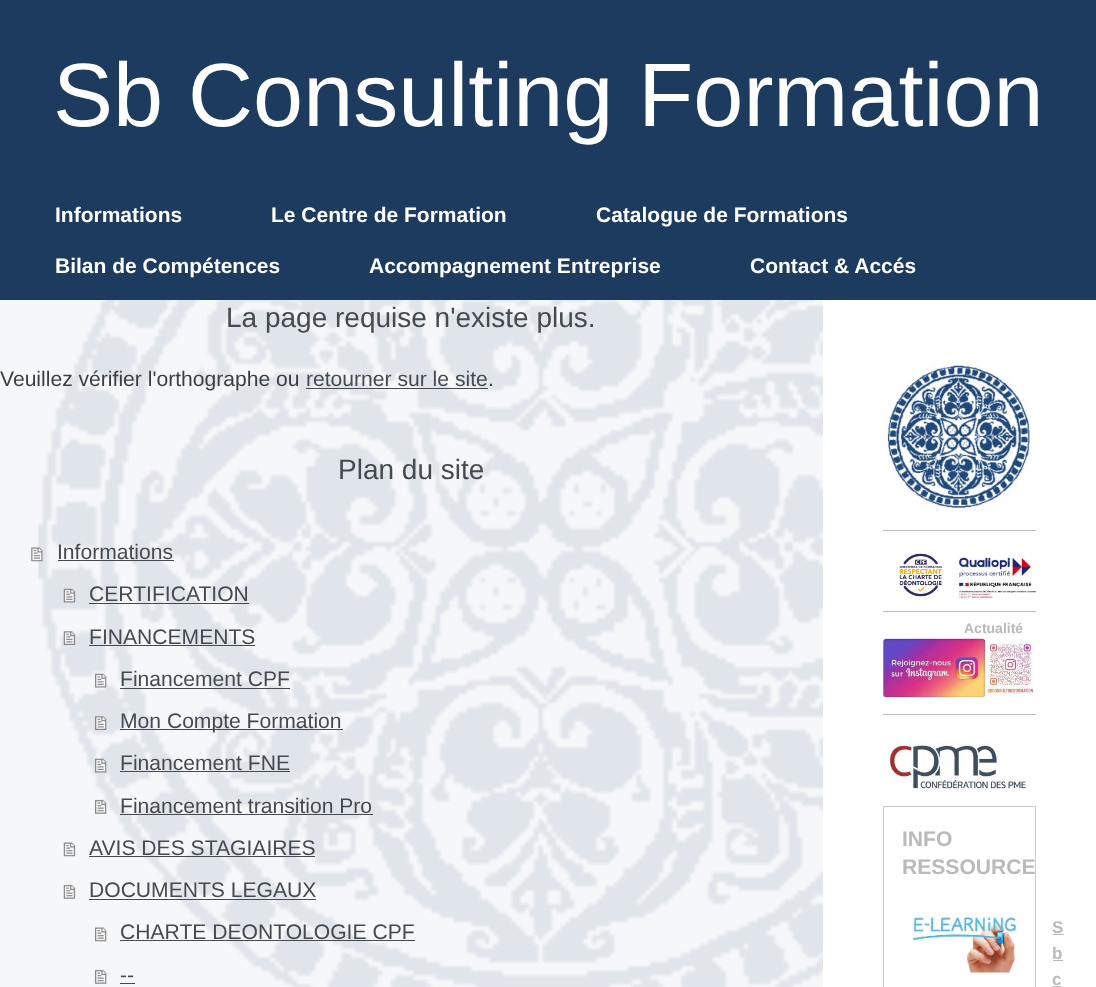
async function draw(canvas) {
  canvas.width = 1096;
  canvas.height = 987;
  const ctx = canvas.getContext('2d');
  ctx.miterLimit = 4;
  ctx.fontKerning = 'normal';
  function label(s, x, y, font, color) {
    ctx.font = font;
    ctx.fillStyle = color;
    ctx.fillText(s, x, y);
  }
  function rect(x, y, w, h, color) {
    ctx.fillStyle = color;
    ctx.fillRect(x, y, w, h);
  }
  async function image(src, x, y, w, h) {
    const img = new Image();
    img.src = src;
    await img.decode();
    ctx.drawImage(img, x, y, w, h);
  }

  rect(0, 0, 1096, 987, '#fff');
  await image('assets/img1.png', 0, 300, 823, 687);
  rect(0, 0, 1096, 300, '#1c3b5e');
  label('Sb Consulting Formation', 53, 126, '90px Liberation Sans', '#fff');
  label('Informations', 55, 222, 'bold 21px Liberation Sans', '#fff');
  label('Le Centre de Formation', 271, 222, 'bold 21px Liberation Sans', '#fff');
  label('Catalogue de Formations', 596, 222, 'bold 21px Liberation Sans', '#fff');
  label('Bilan de Compétences', 55, 273, 'bold 21px Liberation Sans', '#fff');
  label('Accompagnement Entreprise', 369, 273, 'bold 21px Liberation Sans', '#fff');
  label('Contact & Accés', 750, 273, 'bold 21px Liberation Sans', '#fff');
  rect(0, 300, 823, 687, '#f5f6f7e6');
  label('La page requise n\'existe plus.', 226, 327, '28px Liberation Sans', '#444a4f');
  label('Veuillez vérifier l\'orthographe ou', 0, 386, '21.1px Liberation Sans', '#3a3e43');
  label('retourner sur le site', 306, 386, '21.1px Liberation Sans', '#444a4f');
  rect(306, 388, 182, 1, '#444a4f');
  label('.', 488, 386, '21.1px Liberation Sans', '#3a3e43');
  label('Plan du site', 338, 479, '28px Liberation Sans', '#444a4f');
  await image('assets/img2.png', 31, 547, 12, 15);
  label('Informations', 57, 559, '21.1px Liberation Sans', '#444a4f');
  rect(58, 560, 116, 1, '#444a4f');
  await image('assets/img3.png', 63, 588, 13, 15);
  label('CERTIFICATION', 89, 601, '21.1px Liberation Sans', '#444a4f');
  rect(89, 603, 160, 1, '#444a4f');
  await image('assets/img4.png', 63, 631, 13, 14);
  label('FINANCEMENTS', 89, 644, '21.1px Liberation Sans', '#444a4f');
  rect(89, 645, 166, 1, '#444a4f');
  await image('assets/img5.png', 95, 673, 12, 15);
  label('Financement CPF', 120, 686, '21.1px Liberation Sans', '#444a4f');
  rect(120, 688, 170, 1, '#444a4f');
  await image('assets/img6.png', 95, 716, 12, 14);
  rect(120, 729, 223, 1, '#444a4f');
  label('Mon Compte Formation', 120, 728, '21.1px Liberation Sans', '#444a4f');
  await image('assets/img7.png', 95, 758, 12, 15);
  label('Financement FNE', 120, 770, '21.1px Liberation Sans', '#444a4f');
  rect(120, 771, 170, 1, '#444a4f');
  await image('assets/img8.png', 95, 799, 12, 15);
  label('Financement transition Pro', 120, 813, '21.1px Liberation Sans', '#444a4f');
  rect(120, 814, 253, 1, '#444a4f');
  await image('assets/img9.png', 63, 842, 13, 15);
  label('AVIS DES STAGIAIRES', 89, 855, '21.1px Liberation Sans', '#444a4f');
  rect(89, 856, 226, 1, '#444a4f');
  await image('assets/img10.png', 63, 884, 13, 15);
  label('DOCUMENTS LEGAUX', 89, 897, '21.1px Liberation Sans', '#444a4f');
  rect(89, 899, 227, 1, '#444a4f');
  await image('assets/img11.png', 95, 927, 12, 15);
  label('CHARTE DEONTOLOGIE CPF', 120, 939, '21.1px Liberation Sans', '#444a4f');
  rect(120, 940, 295, 1, '#444a4f');
  await image('assets/img12.png', 95, 969, 12, 15);
  label('--', 120, 982, '21.1px Liberation Sans', '#444a4f');
  rect(120, 983, 15, 1, '#444a4f');
  await image('assets/img13.png', 883, 360, 148, 148);
  rect(883, 530, 153, 1, '#bababa');
  await image('assets/img14.png', 899, 553, 43, 44);
  await image('assets/img15.png', 958, 557, 79, 43);
  rect(883, 611, 153, 1, '#bababa');
  label('Actualité', 964, 633, 'bold 14px Liberation Sans', '#bababa');
  await image('assets/img16.png', 882, 638, 153, 60);
  rect(883, 714, 153, 1, '#bababa');
  await image('assets/img17.png', 883, 738, 145, 55);
  ctx.strokeStyle = '#cbcbcb';
  ctx.strokeRect(883.5, 806.5, 152, 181);
  label('INFO', 902, 846, 'bold 21.1px Liberation Sans', '#bababa');
  label('RESSOURCE', 902, 874, 'bold 21.1px Liberation Sans', '#bababa');
  await image('assets/img18.png', 911, 917, 107, 56);
  label('S', 1052, 933, 'bold 17px Liberation Sans', '#bababa');
  rect(1053, 934, 11, 1, '#bababa');
  label('b', 1052, 959, 'bold 17px Liberation Sans', '#bababa');
  rect(1053, 960, 10, 1, '#bababa');
  label('c', 1052, 985, 'bold 17px Liberation Sans', '#bababa');
  rect(1053, 986, 8, 1, '#bababa');
}

draw(document.querySelector('canvas'));
